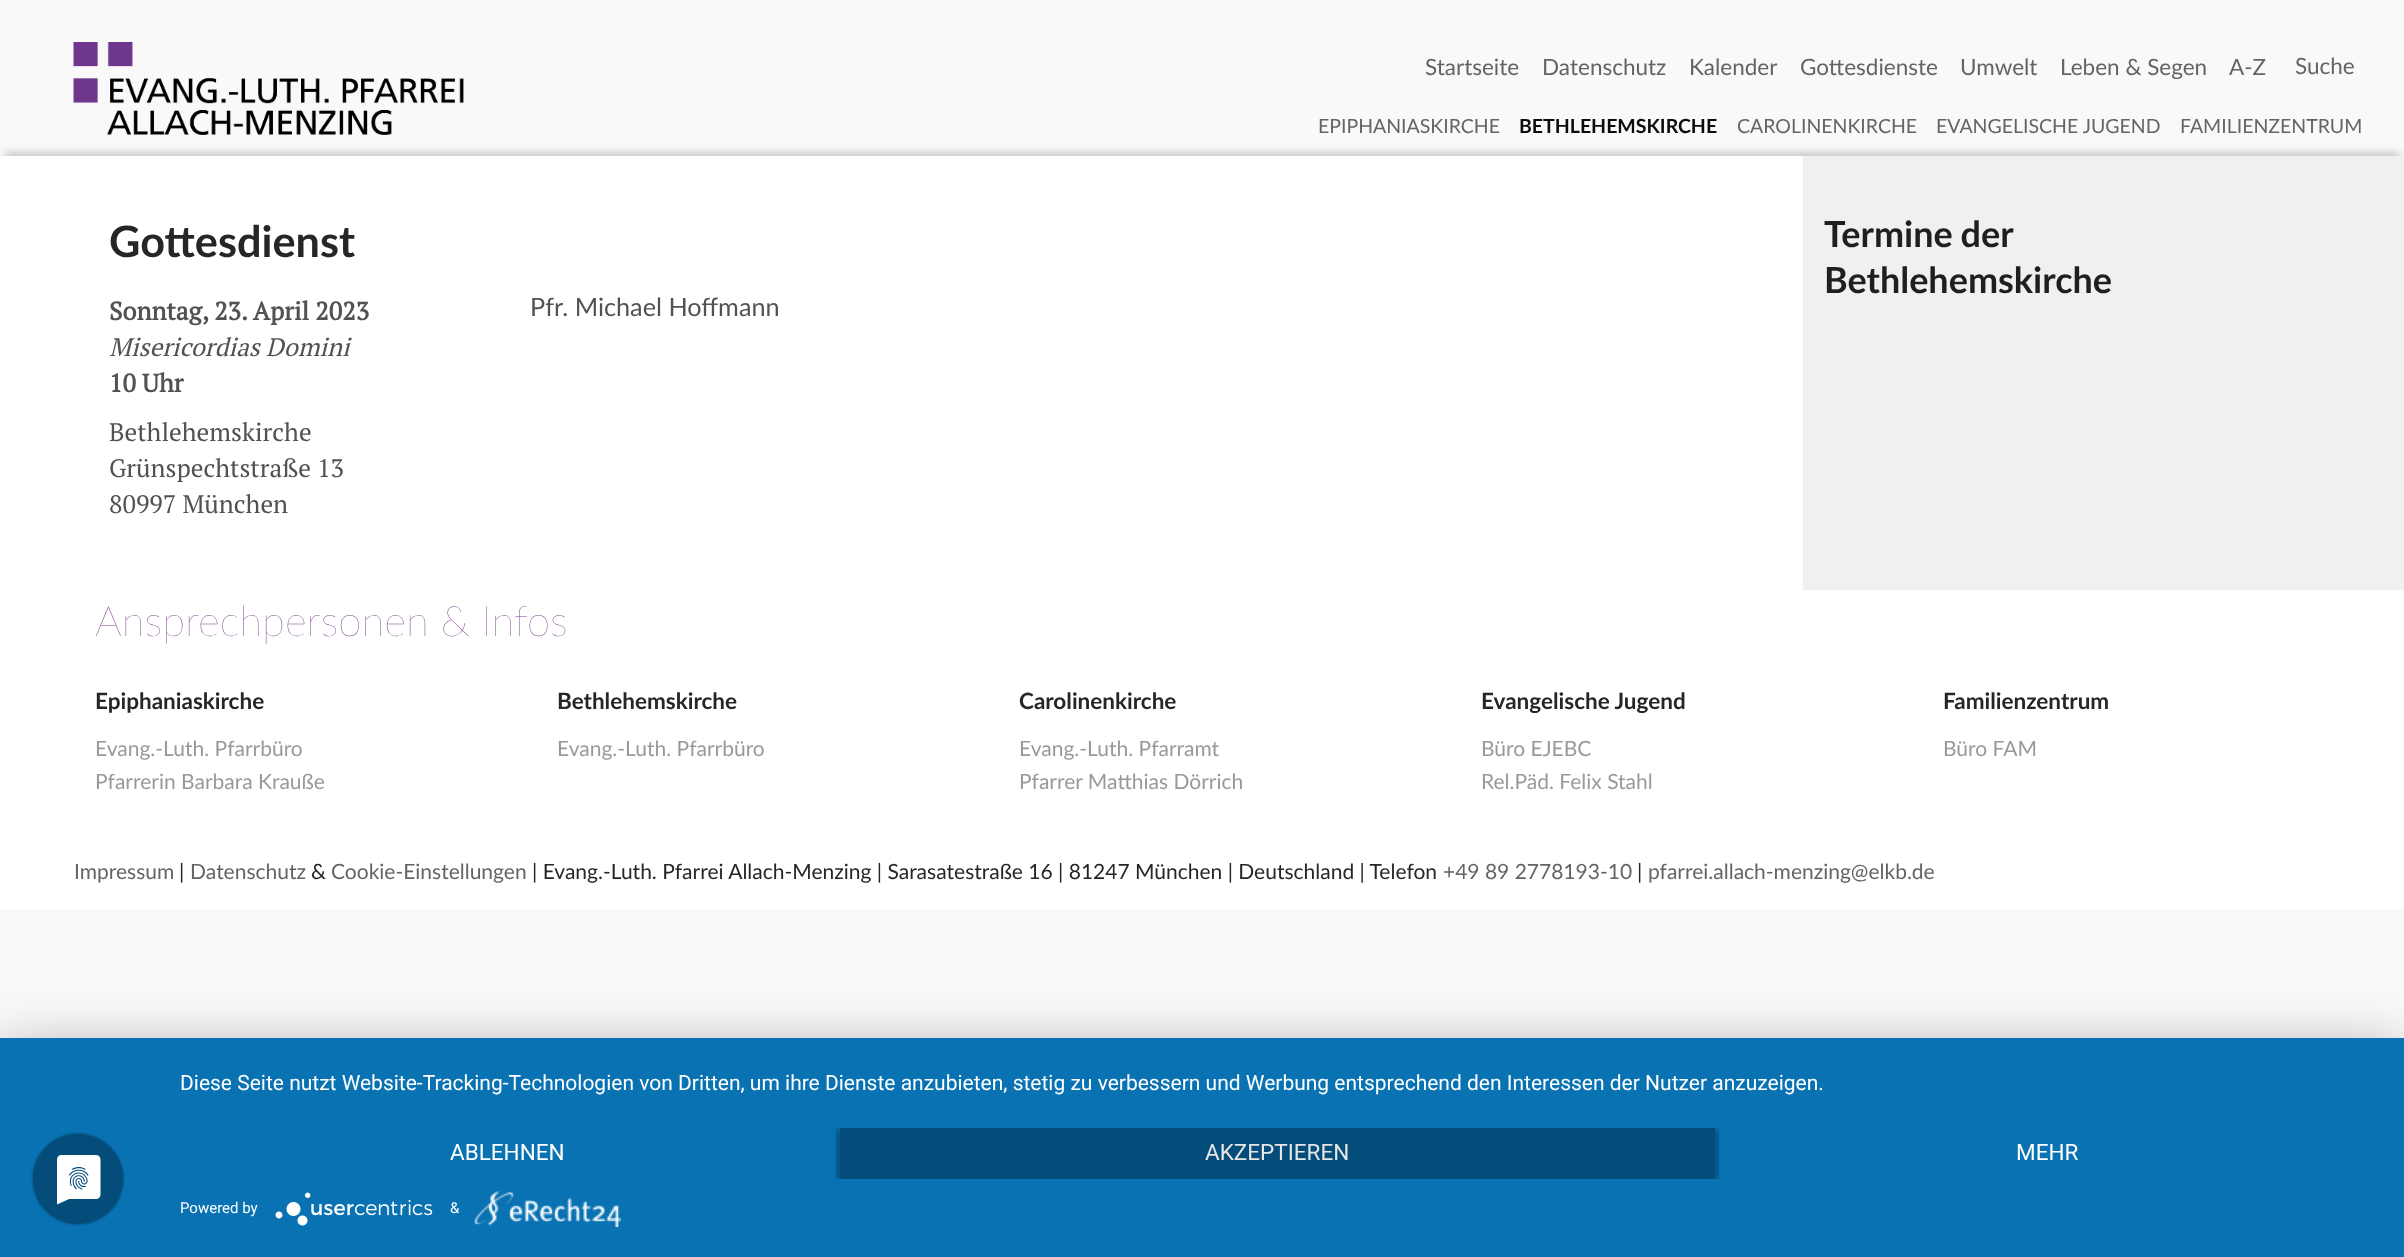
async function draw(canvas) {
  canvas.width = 2404;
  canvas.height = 1257;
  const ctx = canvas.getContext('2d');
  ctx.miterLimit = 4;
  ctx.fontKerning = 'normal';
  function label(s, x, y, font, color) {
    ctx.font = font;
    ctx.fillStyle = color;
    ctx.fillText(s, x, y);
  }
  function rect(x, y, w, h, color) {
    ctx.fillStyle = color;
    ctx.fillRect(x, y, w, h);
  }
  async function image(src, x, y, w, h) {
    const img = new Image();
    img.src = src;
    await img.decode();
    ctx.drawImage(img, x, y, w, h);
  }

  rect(0, 0, 2404, 1257, '#f9f9f9');
  await image('assets/img1.png', 73, 42, 391, 93);
  label('Startseite', 1425, 75, '22.5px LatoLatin', '#646464');
  label('Datenschutz', 1542, 75, '22.5px LatoLatin', '#646464');
  label('Kalender', 1689, 75, '22.5px LatoLatin', '#646464');
  label('Gottesdienste', 1800, 75, '22.5px LatoLatin', '#646464');
  label('Umwelt', 1960, 75, '22.5px LatoLatin', '#646464');
  label('Leben & Segen', 2060, 75, '22.5px LatoLatin', '#646464');
  label('A-Z', 2229, 75, '22.5px LatoLatin', '#646464');
  label('Suche', 2295, 74, '22.5px LatoLatin', '#646464');
  label('EPIPHANIASKIRCHE', 1318, 133, '19.5px LatoLatin', '#646464');
  label('BETHLEHEMSKIRCHE', 1519, 133, 'bold 19.5px LatoLatin', '#0c0c0c');
  label('CAROLINENKIRCHE', 1737, 133, '19.5px LatoLatin', '#646464');
  label('EVANGELISCHE JUGEND', 1936, 133, '19.5px LatoLatin', '#646464');
  label('FAMILIENZENTRUM', 2180, 133, '19.5px LatoLatin', '#646464');
  ctx.fillStyle = '#c0c0c0';
  ctx.filter = 'blur(4px)';
  ctx.beginPath();
  ctx.rect(5, 153, 2395, 425);
  ctx.fill();
  ctx.filter = 'none';
  rect(0, 156, 1803, 434, '#fff');
  label('Gottesdienst', 109, 257, 'bold 43.25px LatoLatin', '#262626');
  label('Sonntag, 23. April 2023', 109, 320, 'bold 25.25px PT Serif', '#525252');
  label('Misericordias Domini', 109, 356, 'italic 25.25px PT Serif', '#525252');
  label('10 Uhr', 109, 392, 'bold 25.25px PT Serif', '#525252');
  label('Bethlehemskirche', 109, 441, '25.25px PT Serif', '#525252');
  label('Grünspechtstraße 13', 109, 477, '25.25px PT Serif', '#525252');
  label('80997 München', 109, 513, '25.25px PT Serif', '#525252');
  label('Pfr. Michael Hoffmann', 530, 316, '25.25px LatoLatin', '#525252');
  rect(1803, 156, 601, 434, '#f0f0f0');
  ctx.wordSpacing = '-1px';
  label('Termine der', 1824, 247, 'bold 36px LatoLatin', '#1f1f1f');
  ctx.wordSpacing = '0px';
  label('Bethlehemskirche', 1824, 293, 'bold 36px LatoLatin', '#1f1f1f');
  rect(0, 590, 2404, 319, '#fff');
  label('Ansprechpersonen & Infos', 95, 636, '100 42px LatoLatin', '#793a8b');
  label('Epiphaniaskirche', 95, 709, 'bold 22.5px LatoLatin', '#262626');
  label('Evang.-Luth. Pfarrbüro', 95, 756, '21px LatoLatin', '#999');
  label('Pfarrerin Barbara Krauße', 95, 789, '21px LatoLatin', '#999');
  label('Bethlehemskirche', 557, 709, 'bold 22.5px LatoLatin', '#262626');
  label('Evang.-Luth. Pfarrbüro', 557, 756, '21px LatoLatin', '#999');
  label('Carolinenkirche', 1019, 709, 'bold 22.5px LatoLatin', '#262626');
  label('Evang.-Luth. Pfarramt', 1019, 756, '21px LatoLatin', '#999');
  label('Pfarrer Matthias Dörrich', 1019, 789, '21px LatoLatin', '#999');
  label('Evangelische Jugend', 1481, 709, 'bold 22.5px LatoLatin', '#262626');
  label('Büro EJEBC', 1481, 756, '21px LatoLatin', '#999');
  label('Rel.Päd. Felix Stahl', 1481, 789, '21px LatoLatin', '#999');
  label('Familienzentrum', 1943, 709, 'bold 22.5px LatoLatin', '#262626');
  label('Büro FAM', 1943, 756, '21px LatoLatin', '#999');
  label('Impressum', 74, 879, '21px LatoLatin', '#646464');
  label('|', 179, 879, '21px LatoLatin', '#262626');
  label('Datenschutz', 190, 879, '21px LatoLatin', '#646464');
  label('&', 311, 879, '21px LatoLatin', '#262626');
  label('Cookie-Einstellungen', 331, 879, '21px LatoLatin', '#646464');
  label('| Evang.-Luth. Pfarrei Allach-Menzing | Sarasatestraße 16 | 81247 München | Deutschland | Telefon', 532, 879, '21px LatoLatin', '#262626');
  label('+49 89 2778193-10', 1443, 879, '21px LatoLatin', '#646464');
  label('|', 1637, 879, '21px LatoLatin', '#262626');
  label('pfarrei.allach-menzing@elkb.de', 1648, 879, '21px LatoLatin', '#646464');
  ctx.fillStyle = '#0000004d';
  ctx.filter = 'blur(27px)';
  ctx.beginPath();
  ctx.rect(0, 1047, 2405, 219);
  ctx.fill();
  ctx.filter = 'none';
  rect(0, 1038, 2404, 219, '#0972b3');
  await image('assets/img2.png', 31, 1132, 94, 94);
  label('Diese Seite nutzt Website-Tracking-Technologien von Dritten, um ihre Dienste anzubieten, stetig zu verbessern und Werbung entsprechend den Interessen der Nutzer anzuzeigen.', 180, 1090, '21px Roboto', '#fff');
  ctx.save();
  ctx.beginPath();
  ctx.rect(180, 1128, 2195, 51);
  ctx.clip();
  ctx.fillStyle = '#00000066';
  ctx.filter = 'blur(3px)';
  ctx.beginPath();
  ctx.rect(180, 1130, 656, 51);
  ctx.fill();
  ctx.filter = 'none';
  ctx.restore();
  rect(180, 1128, 656, 51, '#0972b3');
  label('ABLEHNEN', 450, 1160, '22.5px Roboto', '#fff');
  ctx.save();
  ctx.beginPath();
  ctx.rect(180, 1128, 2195, 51);
  ctx.clip();
  ctx.fillStyle = '#00000066';
  ctx.filter = 'blur(3px)';
  ctx.beginPath();
  ctx.rect(840, 1130, 875, 51);
  ctx.fill();
  ctx.filter = 'none';
  ctx.restore();
  rect(840, 1128, 875, 51, '#044d7a');
  label('AKZEPTIEREN', 1205, 1160, '22.5px Roboto', '#e6e6e6');
  ctx.save();
  ctx.beginPath();
  ctx.rect(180, 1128, 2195, 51);
  ctx.clip();
  ctx.fillStyle = '#00000066';
  ctx.filter = 'blur(3px)';
  ctx.beginPath();
  ctx.rect(1719, 1130, 656, 51);
  ctx.fill();
  ctx.filter = 'none';
  ctx.restore();
  rect(1719, 1128, 656, 51, '#0972b3');
  label('MEHR', 2016, 1160, '22.5px Roboto', '#fff');
  label('Powered by', 180, 1213, '15px Roboto', '#fff');
  await image('assets/img3.png', 275, 1192, 158, 34);
  label('&', 450, 1213, '15px Roboto', '#fff');
  await image('assets/img4.png', 474, 1191, 148, 36);
}

draw(document.querySelector('canvas'));
